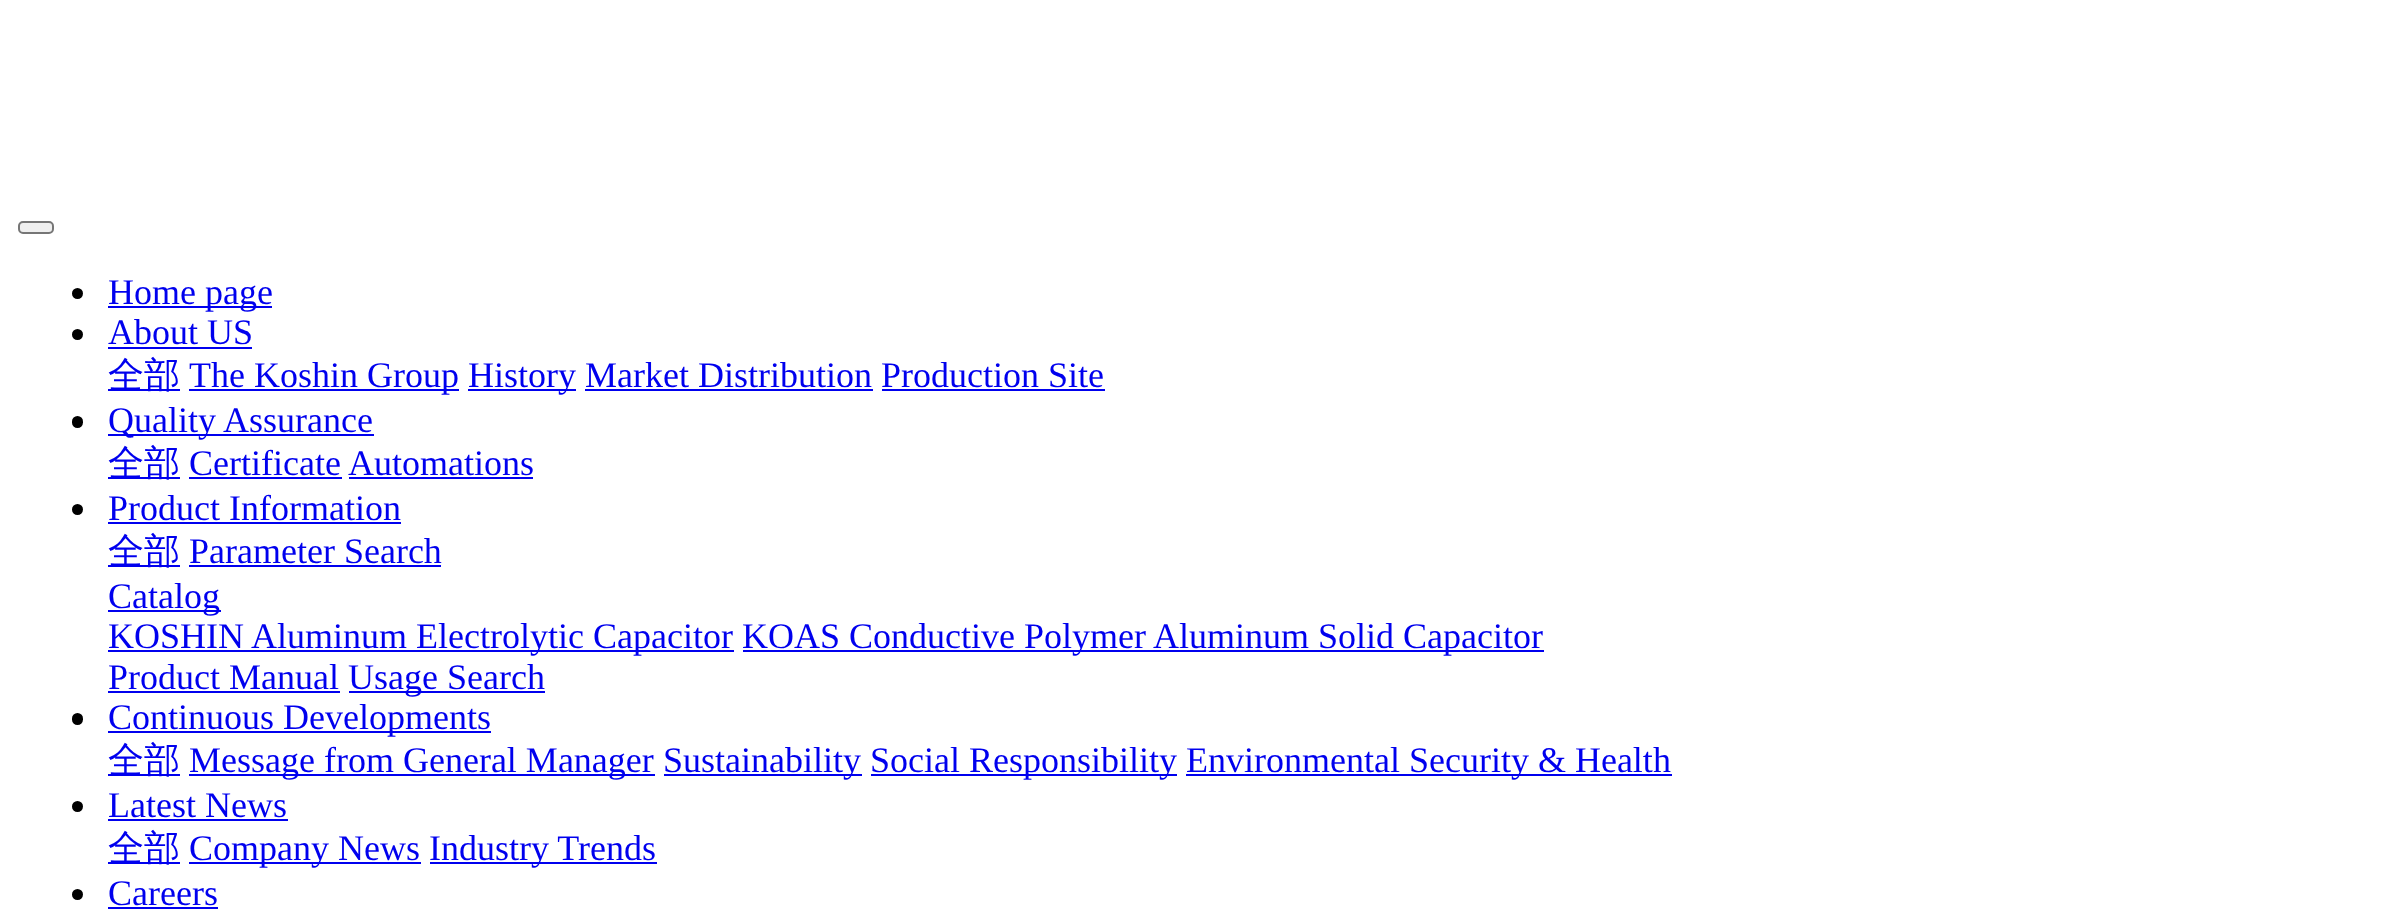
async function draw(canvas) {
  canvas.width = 2392;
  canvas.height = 911;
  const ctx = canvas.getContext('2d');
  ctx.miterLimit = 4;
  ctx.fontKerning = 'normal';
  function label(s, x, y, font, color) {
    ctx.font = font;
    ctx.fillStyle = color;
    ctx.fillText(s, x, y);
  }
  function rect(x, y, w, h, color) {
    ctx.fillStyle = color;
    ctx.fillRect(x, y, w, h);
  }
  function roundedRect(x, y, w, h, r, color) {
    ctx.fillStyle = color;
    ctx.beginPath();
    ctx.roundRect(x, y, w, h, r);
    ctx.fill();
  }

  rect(0, 0, 2392, 911, '#fff');
  ctx.fillStyle = '#efefef';
  ctx.beginPath();
  ctx.roundRect(19, 222, 34, 11, 4);
  ctx.fill();
  ctx.strokeStyle = '#767676';
  ctx.lineWidth = 2;
  ctx.stroke();
  ctx.fillStyle = '#000';
  ctx.beginPath();
  ctx.arc(77.5, 293.5, 5.5, 0, 2 * Math.PI);
  ctx.fill();
  rect(108, 306, 164, 2, '#00e');
  label('Home page', 108, 304, '36px Liberation Serif', '#00e');
  ctx.fillStyle = '#000';
  ctx.beginPath();
  ctx.arc(77.5, 334.5, 5.5, 0, 2 * Math.PI);
  ctx.fill();
  label('About US', 108, 344, '36px Liberation Serif', '#00e');
  rect(108, 347, 144, 2, '#00e');
  rect(108, 389, 72, 2, '#00e');
  label('全部', 108, 387, '500 36px WenQuanYi Zen Hei', '#00e');
  rect(189, 389, 270, 2, '#00e');
  label('The Koshin Group', 189, 387, '36px Liberation Serif', '#00e');
  rect(468, 389, 108, 2, '#00e');
  label('History Market Distribution Production Site', 468, 387, '36px Liberation Serif', '#00e');
  rect(585, 389, 288, 2, '#00e');
  rect(882, 389, 223, 2, '#00e');
  roundedRect(72, 416, 11, 12, 5.5, '#000');
  rect(108, 434, 266, 2, '#00e');
  label('Quality Assurance', 108, 432, '36px Liberation Serif', '#00e');
  rect(108, 477, 72, 2, '#00e');
  label('全部', 108, 475, '500 36px WenQuanYi Zen Hei', '#00e');
  label('Certificate', 189, 475, '36px Liberation Serif', '#00e');
  rect(189, 477, 153, 2, '#00e');
  label('Automations', 348, 475, '36px Liberation Serif', '#00e');
  rect(349, 477, 184, 2, '#00e');
  ctx.fillStyle = '#000';
  ctx.beginPath();
  ctx.arc(77.5, 509.5, 5.5, 0, 2 * Math.PI);
  ctx.fill();
  label('Product Information', 108, 520, '36px Liberation Serif', '#00e');
  rect(108, 522, 293, 2, '#00e');
  rect(108, 565, 72, 2, '#00e');
  label('全部', 108, 563, '500 36px WenQuanYi Zen Hei', '#00e');
  label('Parameter Search', 189, 563, '36px Liberation Serif', '#00e');
  rect(189, 565, 252, 2, '#00e');
  rect(108, 610, 113, 2, '#00e');
  label('Catalog', 108, 608, '36px Liberation Serif', '#00e');
  rect(108, 650, 626, 2, '#00e');
  label('KOSHIN Aluminum Electrolytic Capacitor', 108, 648, '36px Liberation Serif', '#00e');
  rect(743, 650, 801, 2, '#00e');
  label('KOAS Conductive Polymer Aluminum Solid Capacitor', 742, 648, '36px Liberation Serif', '#00e');
  label('Product Manual', 108, 689, '36px Liberation Serif', '#00e');
  rect(108, 691, 232, 2, '#00e');
  rect(349, 691, 196, 2, '#00e');
  label('Usage Search', 348, 689, '36px Liberation Serif', '#00e');
  roundedRect(72, 713, 11, 12, 5.5, '#000');
  rect(108, 731, 383, 2, '#00e');
  label('Continuous Developments', 108, 729, '36px Liberation Serif', '#00e');
  rect(108, 774, 72, 2, '#00e');
  label('全部', 108, 772, '500 36px WenQuanYi Zen Hei', '#00e');
  rect(189, 774, 466, 2, '#00e');
  label('Message from General Manager', 189, 772, '36px Liberation Serif', '#00e');
  rect(664, 774, 198, 2, '#00e');
  label('Sustainability', 663, 772, '36px Liberation Serif', '#00e');
  rect(871, 774, 306, 2, '#00e');
  label('Social Responsibility', 870, 772, '36px Liberation Serif', '#00e');
  rect(1186, 774, 486, 2, '#00e');
  label('Environmental Security & Health', 1186, 772, '36px Liberation Serif', '#00e');
  ctx.fillStyle = '#000';
  ctx.beginPath();
  ctx.arc(77.5, 806.5, 5.5, 0, 2 * Math.PI);
  ctx.fill();
  label('Latest News', 108, 817, '36px Liberation Serif', '#00e');
  rect(108, 819, 180, 2, '#00e');
  rect(108, 862, 72, 2, '#00e');
  label('全部', 108, 860, '500 36px WenQuanYi Zen Hei', '#00e');
  rect(189, 862, 232, 2, '#00e');
  label('Company News', 189, 860, '36px Liberation Serif', '#00e');
  rect(430, 862, 227, 2, '#00e');
  label('Industry Trends', 429, 860, '36px Liberation Serif', '#00e');
  ctx.fillStyle = '#000';
  ctx.beginPath();
  ctx.arc(77.5, 894.5, 5.5, 0, 2 * Math.PI);
  ctx.fill();
  label('Careers', 108, 905, '36px Liberation Serif', '#00e');
  rect(108, 907, 110, 2, '#00e');
}

draw(document.querySelector('canvas'));
